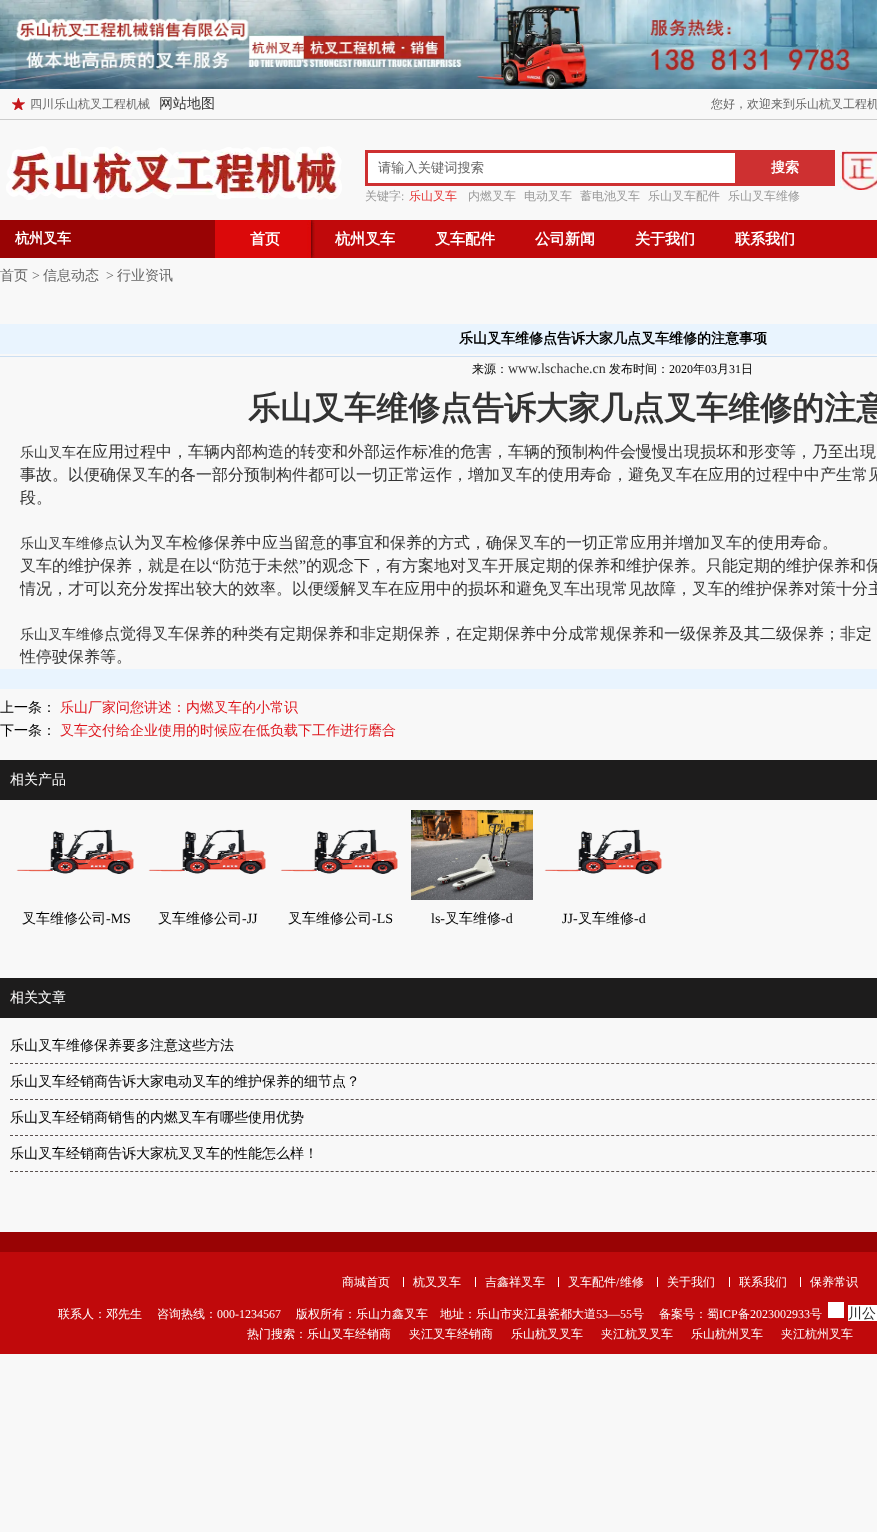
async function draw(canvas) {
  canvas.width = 877;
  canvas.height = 1532;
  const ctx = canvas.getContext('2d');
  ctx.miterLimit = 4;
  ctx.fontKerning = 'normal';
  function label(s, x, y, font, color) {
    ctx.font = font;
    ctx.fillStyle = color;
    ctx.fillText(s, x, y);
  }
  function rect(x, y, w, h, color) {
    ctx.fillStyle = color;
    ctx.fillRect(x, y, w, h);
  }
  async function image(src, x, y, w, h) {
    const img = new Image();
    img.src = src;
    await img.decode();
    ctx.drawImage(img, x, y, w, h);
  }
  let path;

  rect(0, 0, 877, 1532, '#f8f8f8');
  await image('assets/img1.png', 0, 0, 877, 89);
  rect(0, 119, 877, 1, '#ccc');
  await image('assets/img2.png', 12, 98, 13, 12);
  label('四川乐山杭叉工程机械', 30, 108, '500 12px WenQuanYi Zen Hei', '#666');
  label('网站地图', 159, 108, '500 14px WenQuanYi Zen Hei', '#333');
  label('您好，欢迎来到乐山杭叉工程机', 711, 108, '500 12px WenQuanYi Zen Hei', '#666');
  await image('assets/img3.png', 6, 146, 336, 54);
  rect(368, 153, 367, 30, '#fff');
  rect(365, 150, 370, 3, '#ce3031');
  rect(365, 183, 370, 3, '#ce3031');
  rect(365, 150, 3, 36, '#ce3031');
  label('请输入关键词搜索', 378, 172, '500 13.25px WenQuanYi Zen Hei', '#666');
  rect(735, 150, 100, 36, '#ce3031');
  label('搜索', 771, 172, 'bold 14px WenQuanYi Zen Hei', '#fff');
  label('关键字', 365, 200, '500 12px WenQuanYi Zen Hei', '#999');
  label(':', 401, 200, '12px Liberation Serif', '#999');
  label('乐山叉车', 409, 200, '500 12px WenQuanYi Zen Hei', '#e53333');
  label('内燃叉车', 468, 200, '500 12px WenQuanYi Zen Hei', '#999');
  label('电动叉车', 524, 200, '500 12px WenQuanYi Zen Hei', '#999');
  label('蓄电池叉车', 580, 200, '500 12px WenQuanYi Zen Hei', '#999');
  label('乐山叉车配件', 648, 200, '500 12px WenQuanYi Zen Hei', '#999');
  label('乐山叉车维修', 728, 200, '500 12px WenQuanYi Zen Hei', '#999');
  await image('assets/img4.png', 840, 150, 37, 40);
  rect(315, 220, 562, 38, '#c0090b');
  rect(0, 220, 215, 38, '#990304');
  label('杭州叉车', 15, 243, 'bold 14px WenQuanYi Zen Hei', '#fff');
  rect(215, 220, 92, 38, '#db090a');
  await image('assets/img5.png', 307, 220, 8, 38);
  label('首页', 250, 244, 'bold 15px WenQuanYi Zen Hei', '#fff');
  label('杭州叉车', 335, 244, 'bold 15px WenQuanYi Zen Hei', '#fff');
  label('叉车配件', 435, 244, 'bold 15px WenQuanYi Zen Hei', '#fff');
  label('公司新闻', 535, 244, 'bold 15px WenQuanYi Zen Hei', '#fff');
  label('关于我们', 635, 244, 'bold 15px WenQuanYi Zen Hei', '#fff');
  label('联系我们', 735, 244, 'bold 15px WenQuanYi Zen Hei', '#fff');
  label('首页', 0, 280, '500 14px WenQuanYi Zen Hei', '#666');
  label('>', 32, 280, '14px Liberation Serif', '#666');
  label('信息动态', 43, 280, '500 14px WenQuanYi Zen Hei', '#666');
  label('>', 106, 280, '14px Liberation Serif', '#666');
  label('行业资讯', 117, 280, '500 14px WenQuanYi Zen Hei', '#666');
  rect(0, 324, 877, 30, '#e9f4fe');
  label('乐山叉车维修点告诉大家几点叉车维修的注意事项', 459, 343, 'bold 14px WenQuanYi Zen Hei', '#000');
  rect(0, 356, 877, 1, '#ccdff2');
  label('来源：', 472, 373, '500 12px WenQuanYi Zen Hei', '#000');
  label('www.lschache.cn', 508, 373, '14px Liberation Serif', '#333');
  label('发布时间：', 609, 373, '500 12px WenQuanYi Zen Hei', '#000');
  label('2020', 669, 373, '12px Liberation Serif', '#000');
  label('年', 693, 373, '500 12px WenQuanYi Zen Hei', '#000');
  label('03', 705, 373, '12px Liberation Serif', '#000');
  label('月', 717, 373, '500 12px WenQuanYi Zen Hei', '#000');
  label('31', 729, 373, '12px Liberation Serif', '#000');
  label('日', 741, 373, '500 12px WenQuanYi Zen Hei', '#000');
  label('乐山叉车维修点告诉大家几点叉车维修的注意', 248, 419, 'bold 32px WenQuanYi Zen Hei', '#333');
  rect(0, 669, 877, 20, '#e9f4fe');
  label('乐山叉车', 20, 457, '500 14px WenQuanYi Zen Hei', '#333');
  label('在应用过程中，车辆内部构造的转变和外部运作标准的危害，车辆的预制构件会慢慢出現损坏和形变等，乃至出現', 76, 457, '500 16px WenQuanYi Zen Hei', '#333');
  label('事故。以便确保叉车的各一部分预制构件都可以一切正常运作，增加叉车的使用寿命，避免叉车在应用的过程中中产生常见', 20, 480, '500 16px WenQuanYi Zen Hei', '#333');
  label('段。', 20, 503, '500 16px WenQuanYi Zen Hei', '#333');
  label('乐山叉车维修点', 20, 548, '500 14px WenQuanYi Zen Hei', '#333');
  label('认为叉车检修保养中应当留意的事宜和保养的方式，确保叉车的一切正常应用并增加叉车的使用寿命。', 118, 548, '500 16px WenQuanYi Zen Hei', '#333');
  label('叉车的维护保养，就是在以', 20, 571, '500 16px WenQuanYi Zen Hei', '#333');
  label('“', 212, 571, '16px Liberation Serif', '#333');
  label('防范于未然', 219, 571, '500 16px WenQuanYi Zen Hei', '#333');
  label('”', 299, 571, '16px Liberation Serif', '#333');
  label('的观念下，有方案地对叉车开展定期的保养和维护保养。只能定期的维护保养和保', 306, 571, '500 16px WenQuanYi Zen Hei', '#333');
  label('情况，才可以充分发挥出较大的效率。以便缓解叉车在应用中的损坏和避免叉车出現常见故障，叉车的维护保养对策十分主', 20, 594, '500 16px WenQuanYi Zen Hei', '#333');
  label('乐山叉车维修', 20, 639, '500 14px WenQuanYi Zen Hei', '#333');
  label('点觉得叉车保养的种类有定期保养和非定期保养，在定期保养中分成常规保养和一级保养及其二级保养；非定', 104, 639, '500 16px WenQuanYi Zen Hei', '#333');
  label('性停驶保养等。', 20, 662, '500 16px WenQuanYi Zen Hei', '#333');
  label('上一条：', 0, 712, '500 14px WenQuanYi Zen Hei', '#000');
  label('乐山厂家问您讲述：内燃叉车的小常识', 60, 712, '500 14px WenQuanYi Zen Hei', '#de181f');
  label('下一条：', 0, 735, '500 14px WenQuanYi Zen Hei', '#000');
  label('叉车交付给企业使用的时候应在低负载下工作进行磨合', 60, 735, '500 14px WenQuanYi Zen Hei', '#de181f');
  rect(0, 760, 877, 40, '#1d1c1c');
  label('相关产品', 10, 784, '500 14px WenQuanYi Zen Hei', '#fff');
  await image('assets/img6.png', 16, 829, 118, 45);
  label('叉车维修公司', 22, 923, '500 14px WenQuanYi Zen Hei', '#000');
  label('-MS', 106, 923, '14px Liberation Serif', '#000');
  await image('assets/img6.png', 148, 829, 118, 45);
  label('叉车维修公司', 158, 923, '500 14px WenQuanYi Zen Hei', '#000');
  label('-JJ', 242, 923, '14px Liberation Serif', '#000');
  await image('assets/img6.png', 280, 829, 118, 45);
  label('叉车维修公司', 288, 923, '500 14px WenQuanYi Zen Hei', '#000');
  label('-LS', 372, 923, '14px Liberation Serif', '#000');
  await image('assets/img7.png', 411, 810, 122, 90);
  label('ls-', 431, 923, '14px Liberation Serif', '#000');
  label('叉车维修', 445, 923, '500 14px WenQuanYi Zen Hei', '#000');
  label('-d', 501, 923, '14px Liberation Serif', '#000');
  await image('assets/img6.png', 544, 829, 118, 45);
  label('JJ-', 562, 923, '14px Liberation Serif', '#000');
  label('叉车维修', 578, 923, '500 14px WenQuanYi Zen Hei', '#000');
  label('-d', 634, 923, '14px Liberation Serif', '#000');
  rect(0, 978, 877, 40, '#1d1c1c');
  label('相关文章', 10, 1002, '500 14px WenQuanYi Zen Hei', '#fff');
  path = new Path2D('M10 1063.5H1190');
  ctx.strokeStyle = '#59504d';
  ctx.setLineDash([3, 2.01]);
  ctx.stroke(path);
  label('乐山叉车维修保养要多注意这些方法', 10, 1050, '500 14px WenQuanYi Zen Hei', '#000');
  path = new Path2D('M10 1099.5H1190');
  ctx.stroke(path);
  label('乐山叉车经销商告诉大家电动叉车的维护保养的细节点？', 10, 1086, '500 14px WenQuanYi Zen Hei', '#000');
  path = new Path2D('M10 1135.5H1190');
  ctx.stroke(path);
  label('乐山叉车经销商销售的内燃叉车有哪些使用优势', 10, 1122, '500 14px WenQuanYi Zen Hei', '#000');
  path = new Path2D('M10 1171.5H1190');
  ctx.stroke(path);
  label('乐山叉车经销商告诉大家杭叉叉车的性能怎么样！', 10, 1158, '500 14px WenQuanYi Zen Hei', '#000');
  rect(0, 1252, 877, 102, '#c0090b');
  rect(0, 1232, 877, 20, '#990304');
  label('商城首页', 342, 1286, '500 12px WenQuanYi Zen Hei', '#fff');
  rect(403, 1277, 1, 10, '#fff');
  label('杭叉叉车', 413, 1286, '500 12px WenQuanYi Zen Hei', '#fff');
  rect(475, 1277, 1, 10, '#fff');
  label('吉鑫祥叉车', 485, 1286, '500 12px WenQuanYi Zen Hei', '#fff');
  rect(558, 1277, 1, 10, '#fff');
  label('叉车配件', 568, 1286, '500 12px WenQuanYi Zen Hei', '#fff');
  label('/', 616, 1286, '12px Liberation Serif', '#fff');
  label('维修', 620, 1286, '500 12px WenQuanYi Zen Hei', '#fff');
  rect(657, 1277, 1, 10, '#fff');
  label('关于我们', 667, 1286, '500 12px WenQuanYi Zen Hei', '#fff');
  rect(729, 1277, 1, 10, '#fff');
  label('联系我们', 739, 1286, '500 12px WenQuanYi Zen Hei', '#fff');
  rect(800, 1277, 1, 10, '#fff');
  label('保养常识', 810, 1286, '500 12px WenQuanYi Zen Hei', '#fff');
  label('联系人：邓先生', 58, 1318, '500 12px WenQuanYi Zen Hei', '#fff');
  label('咨询热线：', 157, 1318, '500 12px WenQuanYi Zen Hei', '#fff');
  label('000-1234567', 217, 1318, '12px Liberation Serif', '#fff');
  label('版权所有：乐山力鑫叉车', 296, 1318, '500 12px WenQuanYi Zen Hei', '#fff');
  label('地址：乐山市夹江县瓷都大道', 440, 1318, '500 12px WenQuanYi Zen Hei', '#fff');
  label('53—55', 596, 1318, '12px Liberation Serif', '#fff');
  label('号', 632, 1318, '500 12px WenQuanYi Zen Hei', '#fff');
  label('备案号：蜀', 659, 1318, '500 12px WenQuanYi Zen Hei', '#fff');
  label('ICP', 719, 1318, '12px Liberation Serif', '#fff');
  label('备', 738, 1318, '500 12px WenQuanYi Zen Hei', '#fff');
  label('2023002933', 750, 1318, '12px Liberation Serif', '#fff');
  label('号', 810, 1318, '500 12px WenQuanYi Zen Hei', '#fff');
  rect(828, 1302, 16, 16, '#fff');
  rect(848, 1305, 29, 16, '#fff');
  label('川公', 848, 1318, '500 14px WenQuanYi Zen Hei', '#262626');
  label('热门搜索：乐山叉车经销商', 247, 1338, '500 12px WenQuanYi Zen Hei', '#fff');
  label('夹江叉车经销商', 409, 1338, '500 12px WenQuanYi Zen Hei', '#fff');
  label('乐山杭叉叉车', 511, 1338, '500 12px WenQuanYi Zen Hei', '#fff');
  label('夹江杭叉叉车', 601, 1338, '500 12px WenQuanYi Zen Hei', '#fff');
  label('乐山杭州叉车', 691, 1338, '500 12px WenQuanYi Zen Hei', '#fff');
  label('夹江杭州叉车', 781, 1338, '500 12px WenQuanYi Zen Hei', '#fff');
}

draw(document.querySelector('canvas'));
